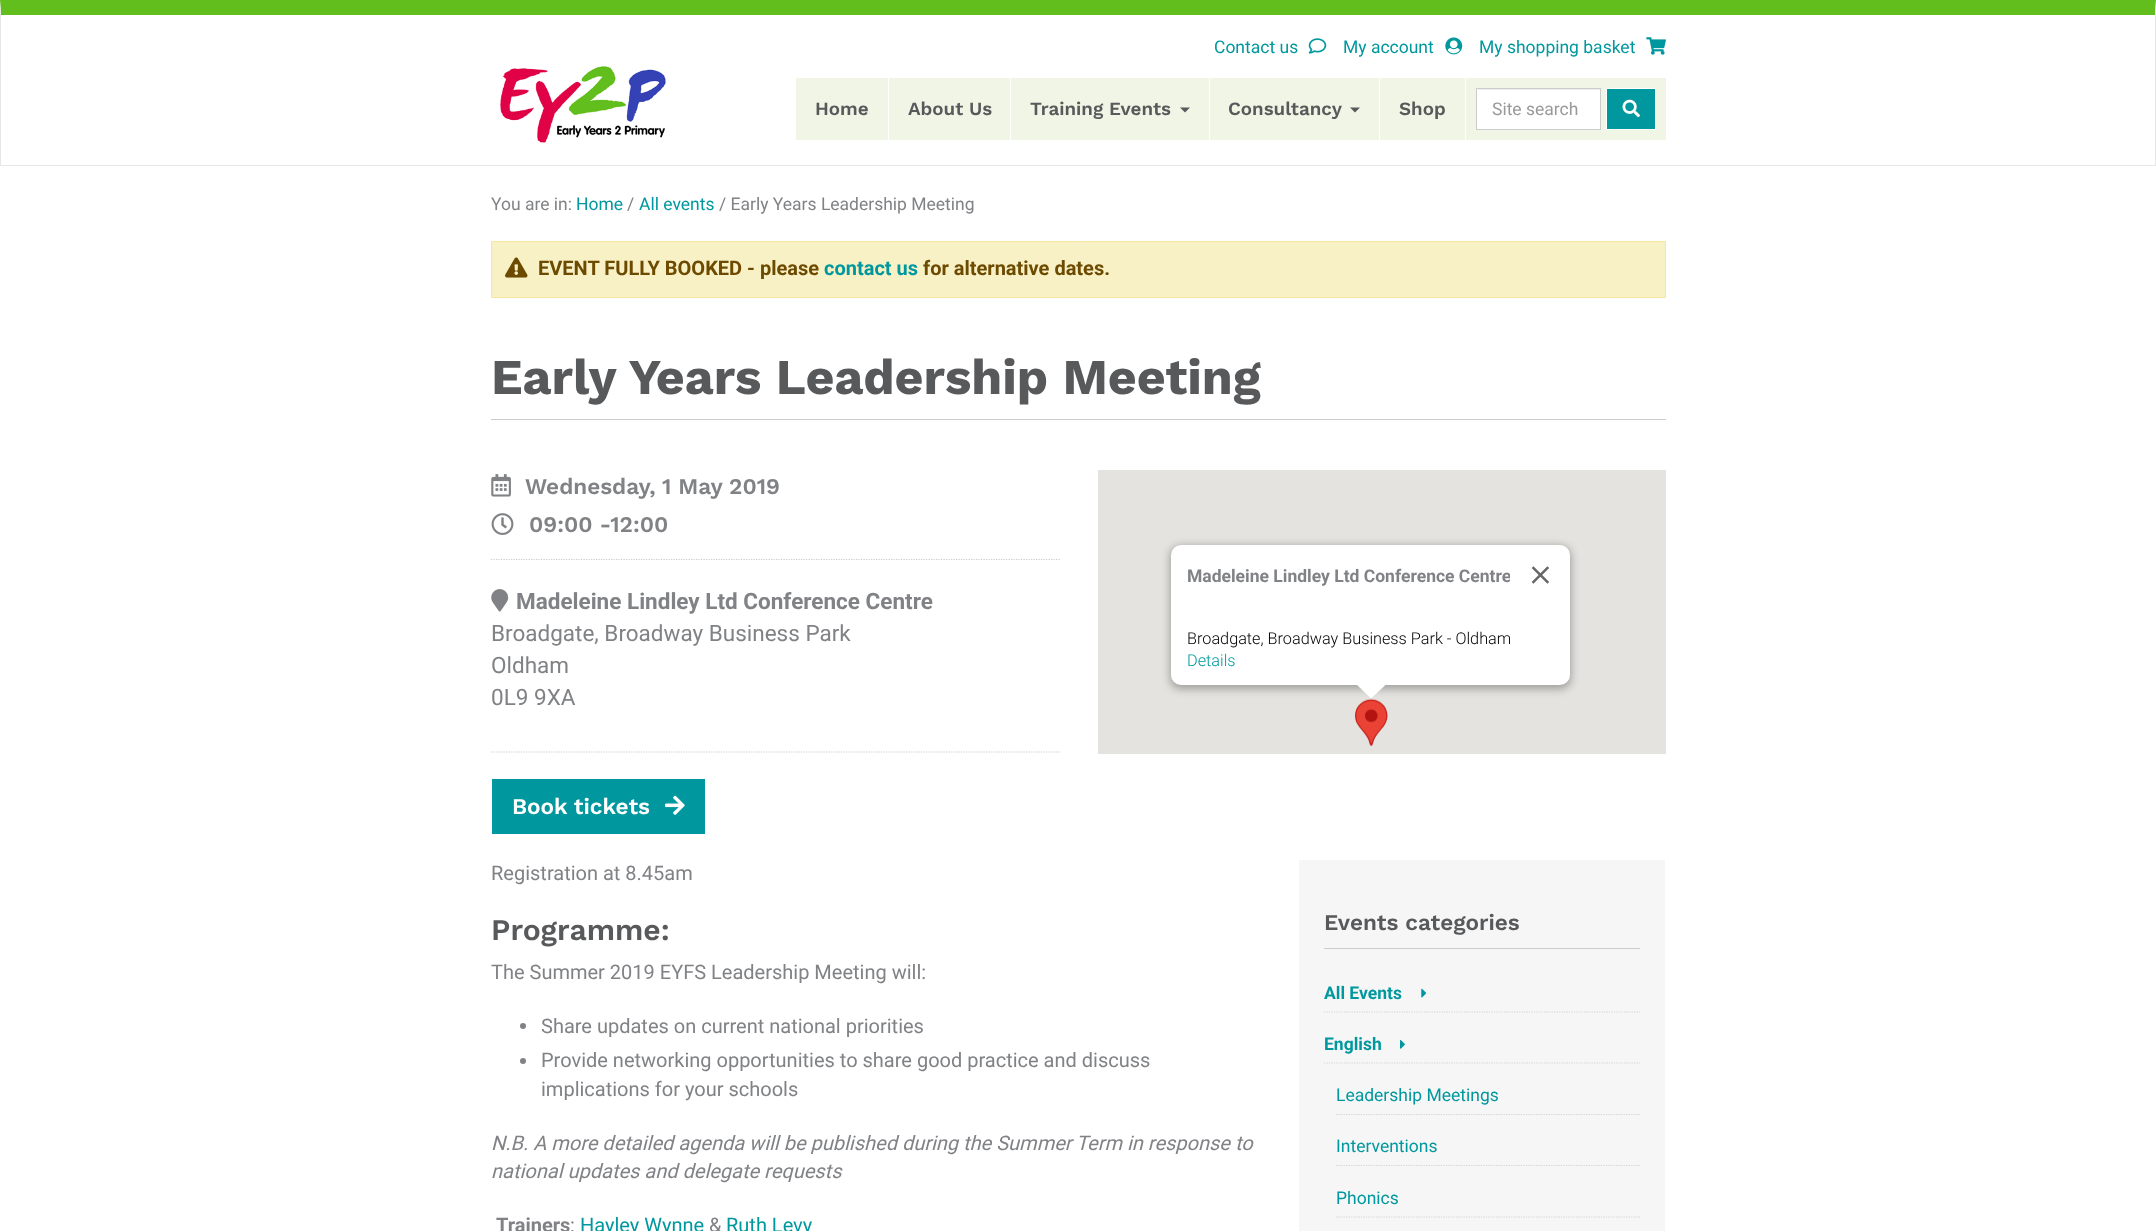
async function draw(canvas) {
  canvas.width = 2156;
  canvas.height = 1231;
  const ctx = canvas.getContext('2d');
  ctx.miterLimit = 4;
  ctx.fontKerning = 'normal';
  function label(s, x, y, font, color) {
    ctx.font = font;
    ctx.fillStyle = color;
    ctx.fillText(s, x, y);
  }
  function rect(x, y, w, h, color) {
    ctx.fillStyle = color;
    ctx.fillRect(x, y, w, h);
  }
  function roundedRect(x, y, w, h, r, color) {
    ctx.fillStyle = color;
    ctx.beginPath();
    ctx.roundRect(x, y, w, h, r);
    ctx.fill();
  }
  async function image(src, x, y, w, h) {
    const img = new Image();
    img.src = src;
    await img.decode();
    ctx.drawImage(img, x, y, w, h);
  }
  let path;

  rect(0, 0, 2156, 1231, '#fff');
  ctx.fillStyle = '#61be1c';
  path = new Path2D('M0 0H2156L2155 15H1Z');
  ctx.fill(path);
  ctx.fillStyle = '#e7e7e7';
  path = new Path2D('M2156 0V166L2155 165V15Z');
  ctx.fill(path);
  rect(0, 165, 2156, 1, '#e7e7e7');
  path = new Path2D('M0 166V0L1 15V165Z');
  ctx.fill(path);
  label('Contact us', 1214, 53, '17.5px Roboto', '#00989e');
  await image('assets/img1.png', 1308, 38, 19, 16);
  label('My account', 1343, 53, '17.5px Roboto', '#00989e');
  await image('assets/img2.png', 1445, 37, 18, 18);
  label('My shopping basket', 1479, 53, '17.5px Roboto', '#00989e');
  await image('assets/img3.png', 1646, 37, 20, 18);
  await image('assets/img4.png', 500, 66, 166, 77);
  rect(796, 78, 92, 62, '#f1f5e5');
  label('Home', 815, 115, '600 18.75px Work Sans', '#58595b');
  rect(889, 78, 121, 62, '#f1f5e5');
  label('About Us', 908, 115, '600 18.75px Work Sans', '#58595b');
  rect(1011, 78, 198, 62, '#f1f5e5');
  label('Training Events', 1030, 115, '600 18.75px Work Sans', '#58595b');
  path = new Path2D('M1180 107.5H1190L1185 112.5Z');
  ctx.fill(path);
  rect(1210, 78, 169, 62, '#f1f5e5');
  label('Consultancy', 1228, 115, '600 18.75px Work Sans', '#58595b');
  path = new Path2D('M1350 107.5H1360L1355 112.5Z');
  ctx.fill(path);
  rect(1380, 78, 85, 62, '#f1f5e5');
  label('Shop', 1399, 115, '600 18.75px Work Sans', '#58595b');
  rect(1466, 78, 200, 62, '#f1f5e5');
  rect(1477, 89, 123, 40, '#fff');
  rect(1478, 89, 122, 1, '#ececec');
  ctx.strokeStyle = '#ccc';
  ctx.strokeRect(1476.5, 88.5, 124, 41);
  label('Site search', 1492, 115, '17.5px Roboto', '#999');
  ctx.fillStyle = '#00989e';
  ctx.beginPath();
  ctx.rect(1606.5, 88.5, 49, 41);
  ctx.fill();
  ctx.strokeStyle = '#fff';
  ctx.stroke();
  await image('assets/img5.png', 1622, 99, 18, 19);
  label('You are in:', 491, 210, '17.5px Roboto', '#808285');
  label('Home', 576, 210, '17.5px Roboto', '#00989e');
  label('/', 627, 210, '17.5px Roboto', '#808285');
  label('All events', 639, 210, '17.5px Roboto', '#00989e');
  label('/ Early Years Leadership Meeting', 719, 210, '17.5px Roboto', '#808285');
  ctx.fillStyle = '#f9f1c6';
  ctx.beginPath();
  ctx.rect(491.5, 241.5, 1174, 56);
  ctx.fill();
  ctx.strokeStyle = '#f5e79e';
  ctx.stroke();
  await image('assets/img6.png', 505, 257, 23, 21);
  label('EVENT FULLY BOOKED - please', 538, 275, 'bold 20px Roboto', '#6c4a00');
  label('contact us', 824, 275, 'bold 20px Roboto', '#00989e');
  label('for alternative dates.', 923, 275, 'bold 20px Roboto', '#6c4a00');
  rect(491, 419, 1175, 1, '#ccc');
  label('Early Years Leadership Meeting', 491, 394, 'bold 50px Work Sans', '#58595b');
  path = new Path2D('M491 559.5H1060');
  ctx.strokeStyle = '#ccc';
  ctx.lineWidth = 1.2;
  ctx.setLineDash([1.25, 1.25]);
  ctx.stroke(path);
  await image('assets/img7.png', 491, 474, 20, 23);
  label('Wednesday, 1 May 2019', 525, 494, '600 22.5px Work Sans', '#808285');
  await image('assets/img8.png', 491, 513, 23, 22);
  label('09:00 -12:00', 529, 532, '600 22.5px Work Sans', '#808285');
  path = new Path2D('M491 752H1060');
  ctx.stroke(path);
  await image('assets/img9.png', 491, 589, 18, 23);
  label('Madeleine Lindley Ltd Conference Centre', 516, 609, 'bold 22.5px Roboto', '#808285');
  label('Broadgate, Broadway Business Park', 491, 641, '22.5px Roboto', '#808285');
  label('Oldham', 491, 673, '22.5px Roboto', '#808285');
  label('0L9 9XA', 491, 705, '22.5px Roboto', '#808285');
  rect(492, 779, 213, 55, '#00989e');
  label('Book tickets', 512, 814, '600 22.5px Work Sans', '#fff');
  await image('assets/img10.png', 665, 795, 20, 20);
  rect(1098, 470, 568, 284, '#e5e3df');
  await image('assets/img12.png', 1355, 698, 33, 48);
  ctx.fillStyle = '#0000004d';
  ctx.filter = 'blur(4.5px)';
  ctx.beginPath();
  ctx.roundRect(1170, 546, 401, 143, 11);
  ctx.fill();
  ctx.filter = 'none';
  roundedRect(1171, 545, 399, 140, 10, '#fff');
  ctx.save();
  ctx.beginPath();
  ctx.rect(1186, 545, 324, 60);
  ctx.clip();
  label('Madeleine Lindley Ltd Conference Centre', 1187, 582, 'bold 17.5px Roboto', '#808285');
  ctx.restore();
  await image('assets/img11.png', 1531, 566, 18, 18);
  label('Broadgate, Broadway Business Park - Oldham', 1187, 644, '300 16.25px Roboto', '#000');
  label('Details', 1187, 666, '300 16.25px Roboto', '#00989e');
  ctx.fillStyle = '#fff';
  path = new Path2D('M1386.5 684H1356L1371 698.5Z');
  ctx.fill(path);
  label('Registration at 8.45am', 491, 880, '20px Roboto', '#808285');
  label('Programme:', 491, 940, '600 30px Work Sans', '#58595b');
  label('The Summer 2019 EYFS Leadership Meeting will:', 491, 979, '20px Roboto', '#808285');
  ctx.beginPath();
  ctx.arc(523, 1026, 3, 0, 2 * Math.PI);
  ctx.fill();
  label('Share updates on current national priorities', 541, 1033, '20px Roboto', '#808285');
  ctx.beginPath();
  ctx.arc(523, 1061, 3, 0, 2 * Math.PI);
  ctx.fill();
  label('Provide networking opportunities to share good practice and discuss', 541, 1067, '20px Roboto', '#808285');
  label('implications for your schools', 541, 1096, '20px Roboto', '#808285');
  label('N.B. A more detailed agenda will be published during the Summer Term in response to', 491, 1150, 'italic 20px Roboto', '#808285');
  label('national updates and delegate requests', 491, 1178, 'italic 20px Roboto', '#808285');
  label('Trainers', 496, 1232, 'bold 20px Roboto', '#808285');
  label(':', 570, 1232, '20px Roboto', '#808285');
  label('Hayley Wynne', 580, 1232, '20px Roboto', '#00989e');
  label('&', 709, 1232, '20px Roboto', '#808285');
  label('Ruth Levy', 726, 1232, '20px Roboto', '#00989e');
  rect(1299, 860, 366, 371, '#f6f6f6');
  rect(1324, 948, 316, 1, '#ccc');
  label('Events categories', 1324, 930, '600 22.5px Work Sans', '#58595b');
  path = new Path2D('M1324 1012H1640');
  ctx.strokeStyle = '#d1d3d4';
  ctx.stroke(path);
  label('All Events', 1324, 999, 'bold 17.5px Roboto', '#00989e');
  await image('assets/img13.png', 1421, 988, 6, 10);
  path = new Path2D('M1324 1063H1640');
  ctx.stroke(path);
  label('English', 1324, 1050, 'bold 17.5px Roboto', '#00989e');
  await image('assets/img14.png', 1400, 1040, 5, 9);
  path = new Path2D('M1336 1114.5H1640');
  ctx.stroke(path);
  label('Leadership Meetings', 1336, 1101, '17.5px Roboto', '#00989e');
  path = new Path2D('M1336 1165.5H1640');
  ctx.stroke(path);
  label('Interventions', 1336, 1152, '17.5px Roboto', '#00989e');
  path = new Path2D('M1336 1217H1640');
  ctx.stroke(path);
  label('Phonics', 1336, 1204, '17.5px Roboto', '#00989e');
}

draw(document.querySelector('canvas'));
